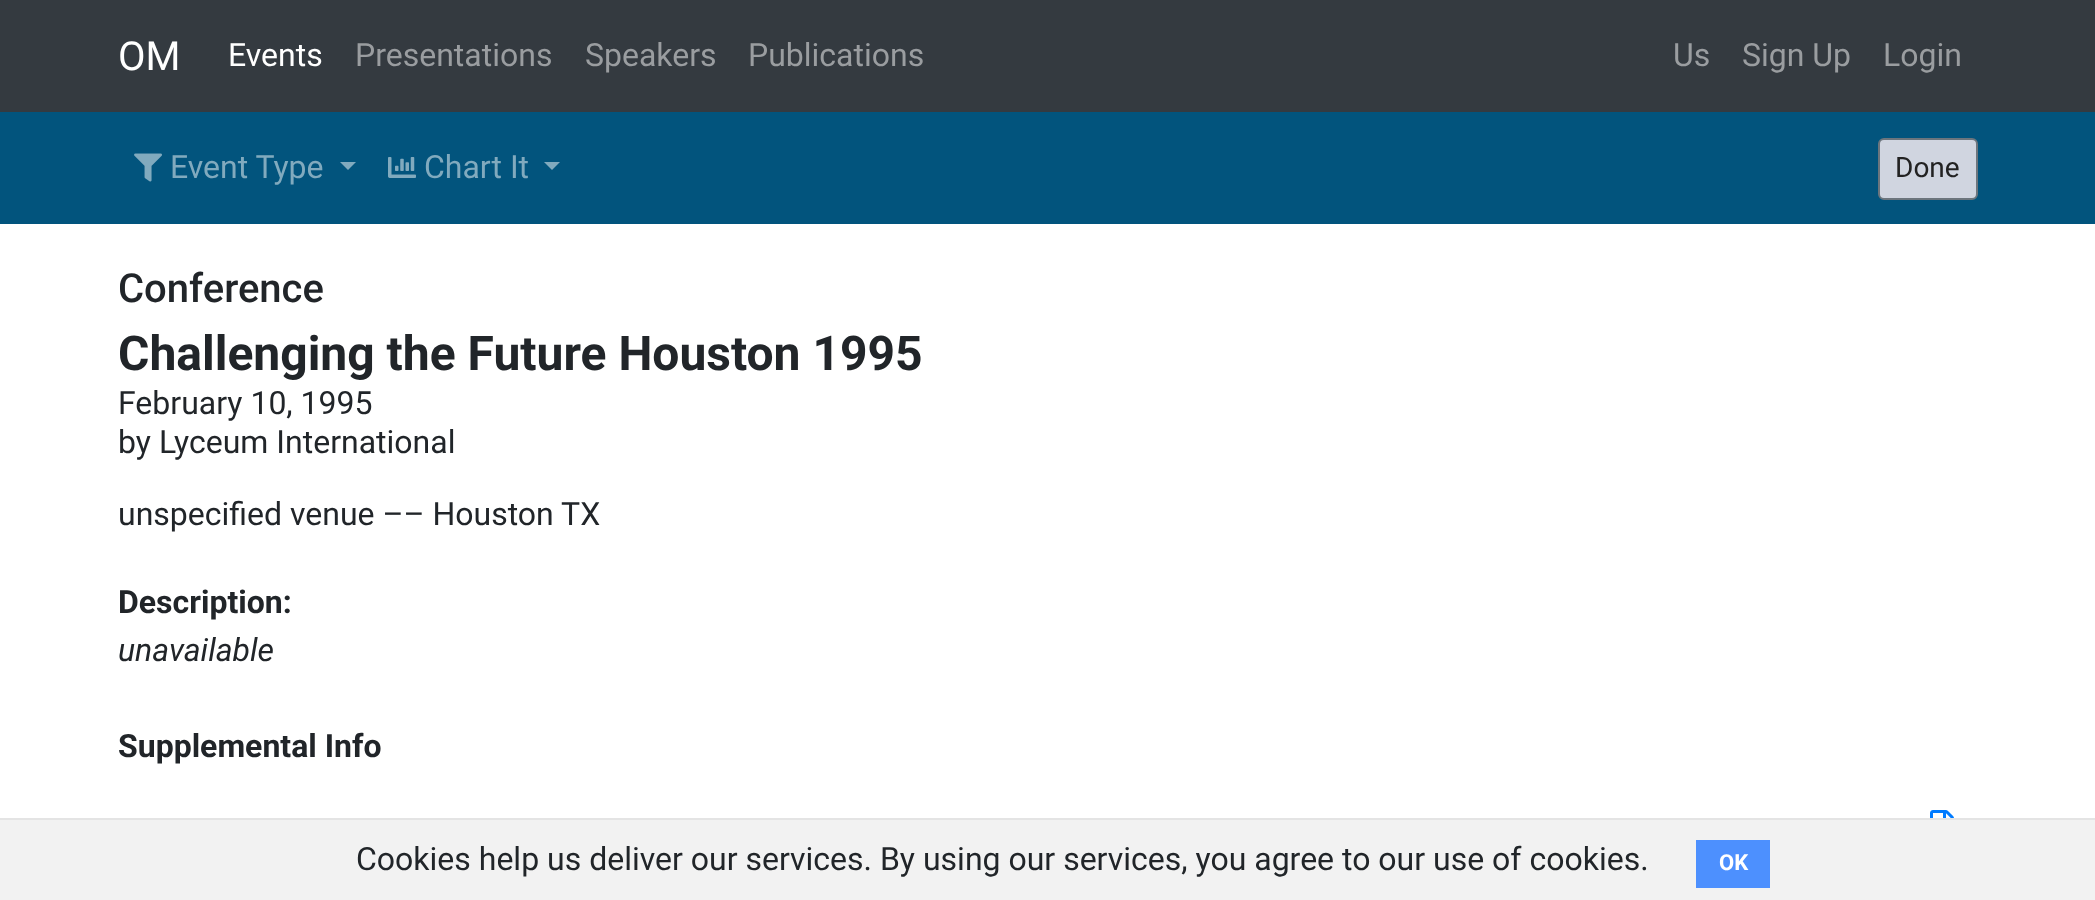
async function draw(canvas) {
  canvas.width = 2095;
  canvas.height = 900;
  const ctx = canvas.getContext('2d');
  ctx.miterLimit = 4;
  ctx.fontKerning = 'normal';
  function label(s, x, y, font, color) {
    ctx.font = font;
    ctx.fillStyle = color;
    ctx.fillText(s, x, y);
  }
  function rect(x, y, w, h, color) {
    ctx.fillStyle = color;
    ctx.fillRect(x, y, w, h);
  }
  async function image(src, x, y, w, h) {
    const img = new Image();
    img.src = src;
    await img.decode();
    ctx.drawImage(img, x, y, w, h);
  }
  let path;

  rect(0, 0, 2095, 900, '#fff');
  rect(0, 0, 2095, 112, '#343a40');
  label('OM', 118, 70, '40px Roboto', '#fff');
  label('Events', 228, 66, '32px Roboto', '#fff');
  label('Presentations', 355, 66, '32px Roboto', '#9a9da0');
  label('Speakers', 585, 66, '32px Roboto', '#9a9da0');
  label('Publications', 748, 66, '32px Roboto', '#9a9da0');
  label('Us', 1673, 66, '32px Roboto', '#9a9da0');
  label('Sign Up', 1742, 66, '32px Roboto', '#9a9da0');
  label('Login', 1883, 66, '32px Roboto', '#9a9da0');
  rect(0, 112, 2095, 112, '#02547d');
  await image('assets/img1.png', 134, 153, 28, 29);
  label('Event Type', 170, 178, '32px Roboto', '#81aabe');
  path = new Path2D('M340 162H356L348 170Z');
  ctx.fill(path);
  await image('assets/img2.png', 388, 157, 28, 21);
  label('Chart It', 424, 178, '32px Roboto', '#81aabe');
  path = new Path2D('M544 162H560L552 170Z');
  ctx.fill(path);
  ctx.fillStyle = '#d0d5e0';
  ctx.beginPath();
  ctx.roundRect(1879, 139, 98, 60, 5);
  ctx.fill();
  ctx.strokeStyle = '#6c757d';
  ctx.lineWidth = 2;
  ctx.stroke();
  label('Done', 1895, 177, '28px Roboto', '#222');
  label('Conference', 118, 302, '500 40px Roboto', '#212529');
  label('Challenging the Future Houston 1995', 118, 370, 'bold 48px Roboto', '#212529');
  label('February 10, 1995', 118, 414, '32px Roboto', '#212529');
  label('by Lyceum International', 118, 453, '32px Roboto', '#212529');
  label('unspecified venue –– Houston TX', 118, 525, '32px Roboto', '#212529');
  label('Description:', 118, 613, 'bold 32px Roboto', '#212529');
  label('unavailable', 118, 661, 'italic 32px Roboto', '#212529');
  label('Supplemental Info', 118, 757, 'bold 32px Roboto', '#212529');
  await image('assets/img3.png', 1930, 810, 24, 8);
  rect(0, 820, 2095, 80, '#f2f2f2');
  rect(0, 818, 2095, 2, '#e4e4e4');
  label('Cookies help us deliver our services. By using our services, you agree to our use of cookies.', 356, 870, '32px Roboto', '#212529');
  rect(1696, 840, 74, 48, '#4d90fe');
  label('OK', 1719, 870, 'bold 22px Roboto', '#fff');
}

draw(document.querySelector('canvas'));
